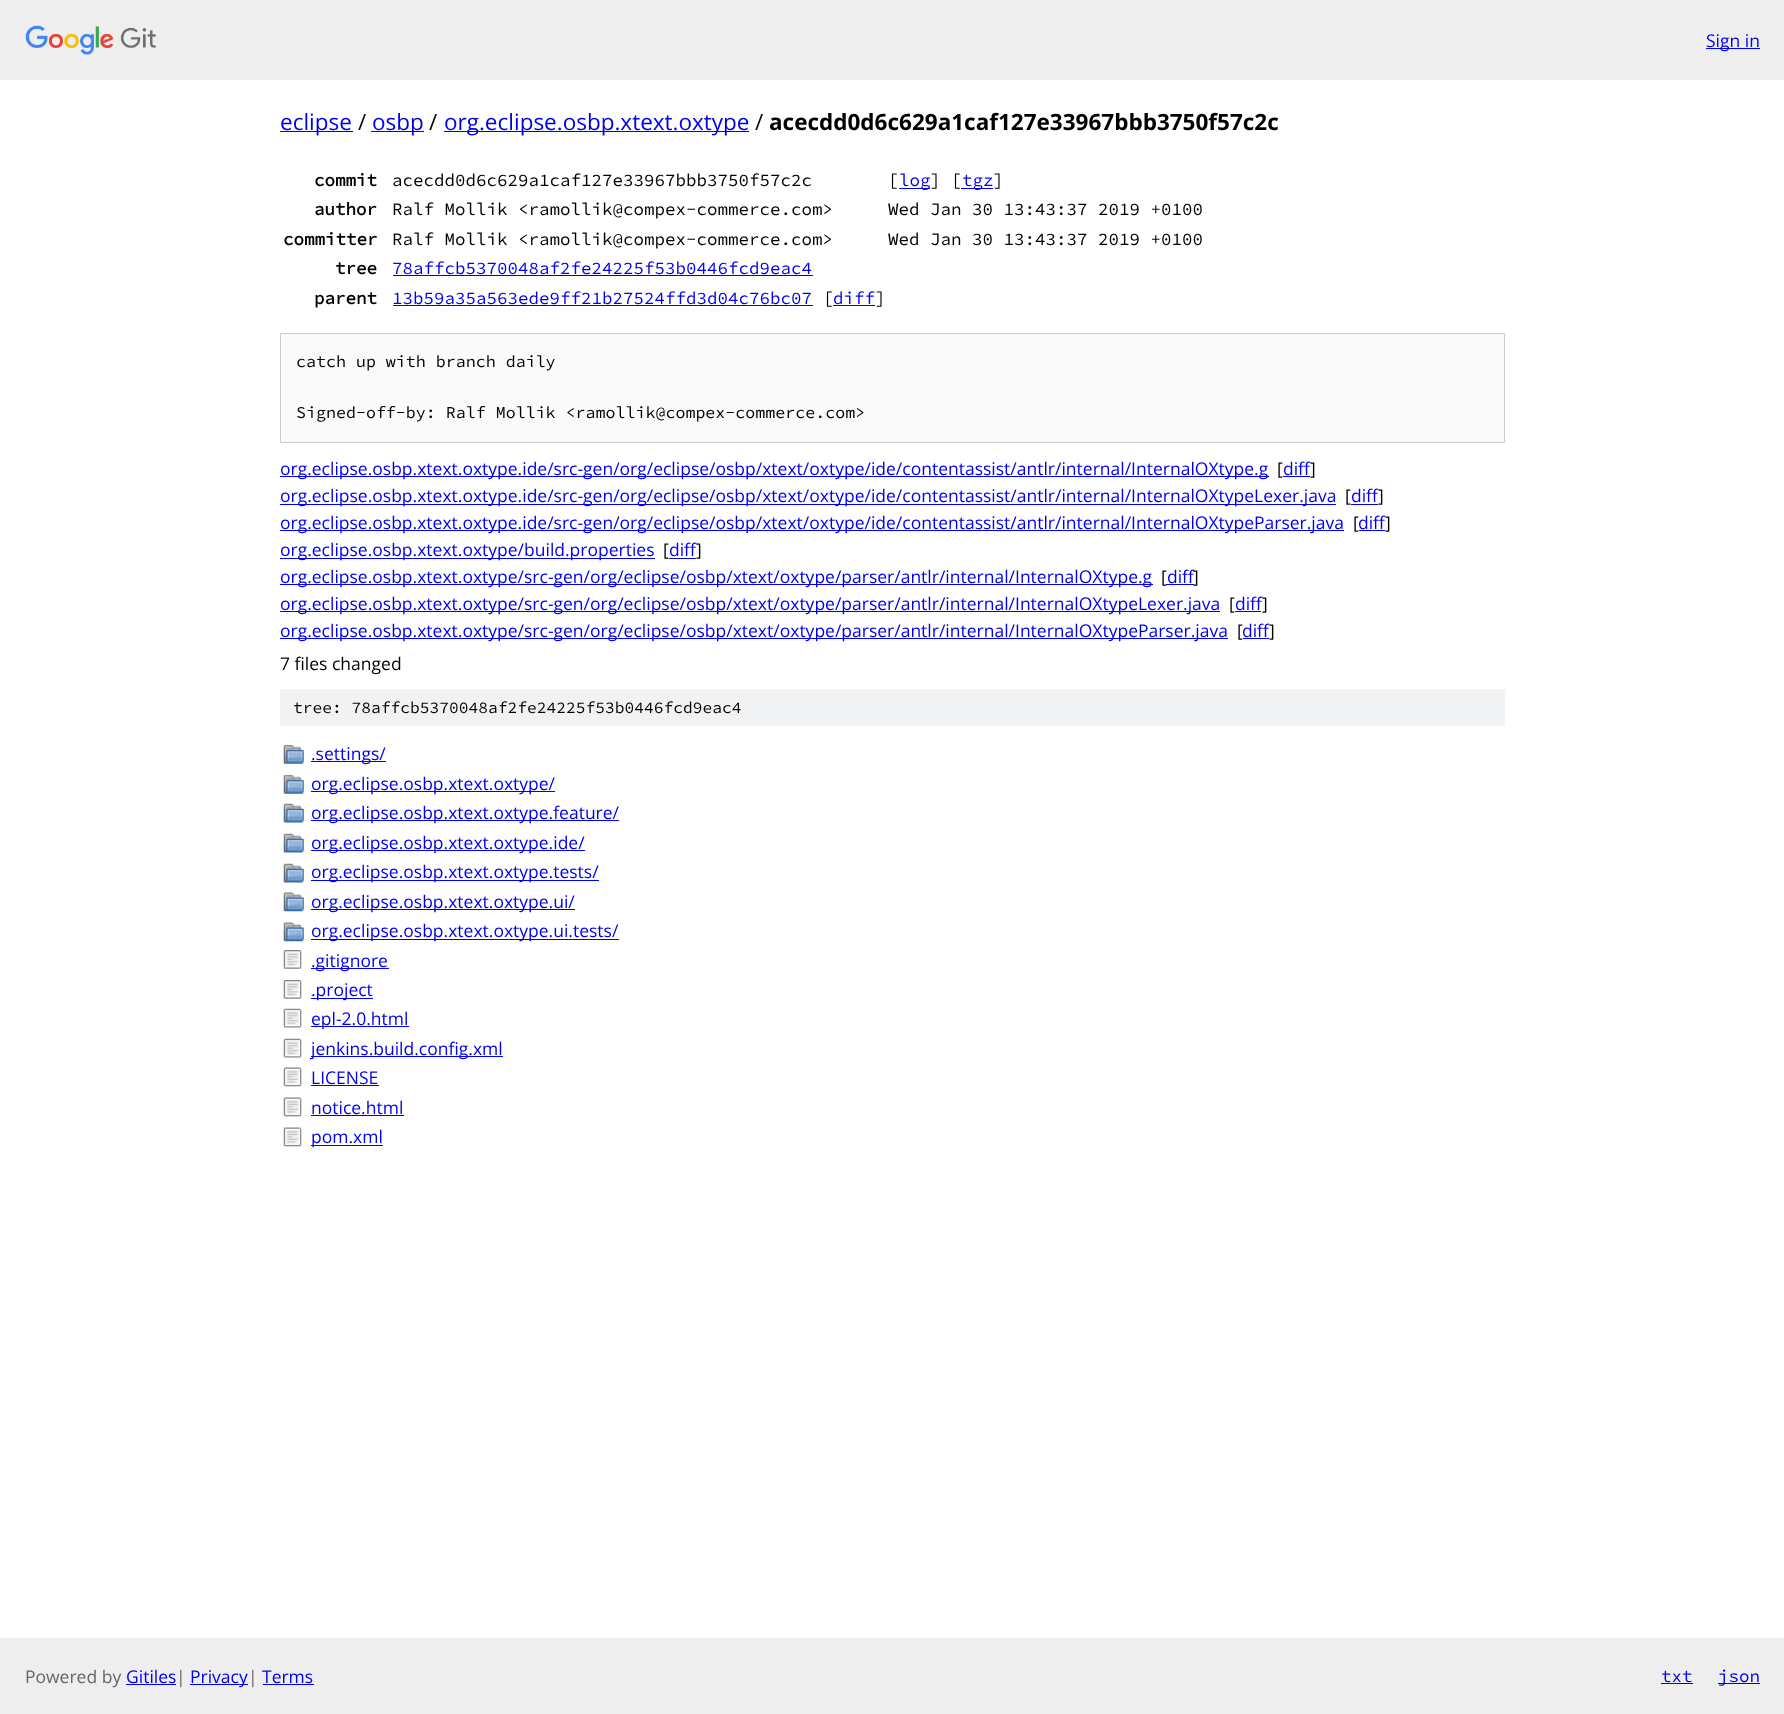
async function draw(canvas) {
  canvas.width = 1784;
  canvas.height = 1714;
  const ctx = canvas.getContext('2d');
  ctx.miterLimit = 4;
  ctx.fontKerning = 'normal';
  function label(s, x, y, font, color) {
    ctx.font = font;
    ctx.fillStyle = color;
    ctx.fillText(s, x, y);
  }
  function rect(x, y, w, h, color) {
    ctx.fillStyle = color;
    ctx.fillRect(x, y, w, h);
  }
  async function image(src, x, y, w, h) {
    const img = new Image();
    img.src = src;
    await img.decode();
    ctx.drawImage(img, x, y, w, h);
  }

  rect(0, 0, 1784, 1714, '#fff');
  rect(0, 0, 1784, 80, '#eee');
  await image('assets/img1.png', 25, 25, 131, 30);
  rect(1706, 48, 54, 1, '#00e');
  label('Sign in', 1706, 47, '17.5px Open Sans', '#00e');
  rect(280, 131, 73, 1, '#00e');
  label('eclipse', 280, 130, '22.5px Open Sans', '#00e');
  label('/', 358, 130, '22.5px Open Sans', '#000');
  rect(371, 131, 53, 1, '#00e');
  label('osbp', 372, 130, '22.5px Open Sans', '#00e');
  label('/', 429, 130, '22.5px Open Sans', '#000');
  rect(444, 131, 305, 1, '#00e');
  label('org.eclipse.osbp.xtext.oxtype', 444, 130, '22.5px Open Sans', '#00e');
  label('/', 755, 130, '22.5px Open Sans', '#000');
  label('acecdd0d6c629a1caf127e33967bbb3750f57c2c', 769, 130, 'bold 22.5px Open Sans', '#000');
  label('commit', 314, 186, 'bold 17.5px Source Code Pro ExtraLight', '#000');
  label('acecdd0d6c629a1caf127e33967bbb3750f57c2c', 392, 186, '200 17.5px Source Code Pro ExtraLight', '#000');
  label('[', 888, 186, '200 17.5px Source Code Pro ExtraLight', '#000');
  rect(899, 188, 31, 1, '#00e');
  label('log', 899, 186, '200 17.5px Source Code Pro ExtraLight', '#00e');
  label('] [', 930, 186, '200 17.5px Source Code Pro ExtraLight', '#000');
  rect(961, 188, 32, 1, '#00e');
  label('tgz', 962, 186, '200 17.5px Source Code Pro ExtraLight', '#00e');
  label(']', 993, 186, '200 17.5px Source Code Pro ExtraLight', '#000');
  label('author', 314, 215, 'bold 17.5px Source Code Pro ExtraLight', '#000');
  label('Ralf Mollik <ramollik@compex-commerce.com>', 392, 215, '200 17.5px Source Code Pro ExtraLight', '#000');
  label('Wed Jan 30 13:43:37 2019 +0100', 888, 215, '200 17.5px Source Code Pro ExtraLight', '#000');
  label('committer', 283, 245, 'bold 17.5px Source Code Pro ExtraLight', '#000');
  label('Ralf Mollik <ramollik@compex-commerce.com>', 392, 245, '200 17.5px Source Code Pro ExtraLight', '#000');
  label('Wed Jan 30 13:43:37 2019 +0100', 888, 245, '200 17.5px Source Code Pro ExtraLight', '#000');
  label('tree', 335, 274, 'bold 17.5px Source Code Pro ExtraLight', '#000');
  label('78affcb5370048af2fe24225f53b0446fcd9eac4', 392, 274, '200 17.5px Source Code Pro ExtraLight', '#00e');
  rect(393, 275, 420, 1, '#00e');
  label('parent', 314, 304, 'bold 17.5px Source Code Pro ExtraLight', '#000');
  label('13b59a35a563ede9ff21b27524ffd3d04c76bc07', 392, 304, '200 17.5px Source Code Pro ExtraLight', '#00e');
  rect(393, 305, 420, 1, '#00e');
  label('[', 823, 304, '200 17.5px Source Code Pro ExtraLight', '#000');
  rect(833, 305, 42, 1, '#00e');
  label('diff', 833, 304, '200 17.5px Source Code Pro ExtraLight', '#00e');
  label(']', 875, 304, '200 17.5px Source Code Pro ExtraLight', '#000');
  ctx.fillStyle = '#fafafa';
  ctx.beginPath();
  ctx.rect(280.5, 333.5, 1224, 109);
  ctx.fill();
  ctx.strokeStyle = '#ccc';
  ctx.stroke();
  label('catch up with branch daily', 296, 367, '200 16.65px Source Code Pro ExtraLight', '#000');
  label('Signed-off-by: Ralf Mollik <ramollik@compex-commerce.com>', 296, 418, '200 16.65px Source Code Pro ExtraLight', '#000');
  rect(280, 476, 989, 1, '#00e');
  label('org.eclipse.osbp.xtext.oxtype.ide/src-gen/org/eclipse/osbp/xtext/oxtype/ide/contentassist/antlr/internal/InternalOXtype.g', 280, 475, '17.5px Open Sans', '#00e');
  label('[', 1277, 475, '17.5px Open Sans', '#000');
  rect(1283, 476, 27, 1, '#00e');
  label('diff', 1283, 475, '17.5px Open Sans', '#00e');
  label(']', 1310, 475, '17.5px Open Sans', '#000');
  rect(280, 504, 1056, 1, '#00e');
  label('org.eclipse.osbp.xtext.oxtype.ide/src-gen/org/eclipse/osbp/xtext/oxtype/ide/contentassist/antlr/internal/InternalOXtypeLexer.java', 280, 502, '17.5px Open Sans', '#00e');
  label('[', 1345, 502, '17.5px Open Sans', '#000');
  rect(1351, 504, 27, 1, '#00e');
  label('diff', 1351, 502, '17.5px Open Sans', '#00e');
  label(']', 1378, 502, '17.5px Open Sans', '#000');
  rect(280, 530, 1064, 1, '#00e');
  label('org.eclipse.osbp.xtext.oxtype.ide/src-gen/org/eclipse/osbp/xtext/oxtype/ide/contentassist/antlr/internal/InternalOXtypeParser.java', 280, 529, '17.5px Open Sans', '#00e');
  label('[', 1353, 529, '17.5px Open Sans', '#000');
  rect(1359, 530, 26, 1, '#00e');
  label('diff', 1358, 529, '17.5px Open Sans', '#00e');
  label(']', 1385, 529, '17.5px Open Sans', '#000');
  rect(280, 558, 375, 1, '#00e');
  label('org.eclipse.osbp.xtext.oxtype/build.properties', 280, 556, '17.5px Open Sans', '#00e');
  label('[', 663, 556, '17.5px Open Sans', '#000');
  rect(669, 558, 27, 1, '#00e');
  label('diff', 669, 556, '17.5px Open Sans', '#00e');
  label(']', 696, 556, '17.5px Open Sans', '#000');
  rect(280, 584, 873, 1, '#00e');
  label('org.eclipse.osbp.xtext.oxtype/src-gen/org/eclipse/osbp/xtext/oxtype/parser/antlr/internal/InternalOXtype.g', 280, 583, '17.5px Open Sans', '#00e');
  label('[', 1161, 583, '17.5px Open Sans', '#000');
  rect(1166, 584, 28, 1, '#00e');
  label('diff', 1167, 583, '17.5px Open Sans', '#00e');
  label(']', 1193, 583, '17.5px Open Sans', '#000');
  rect(280, 611, 940, 1, '#00e');
  label('org.eclipse.osbp.xtext.oxtype/src-gen/org/eclipse/osbp/xtext/oxtype/parser/antlr/internal/InternalOXtypeLexer.java', 280, 610, '17.5px Open Sans', '#00e');
  label('[', 1229, 610, '17.5px Open Sans', '#000');
  rect(1235, 611, 26, 1, '#00e');
  label('diff', 1235, 610, '17.5px Open Sans', '#00e');
  label(']', 1262, 610, '17.5px Open Sans', '#000');
  rect(280, 638, 948, 1, '#00e');
  label('org.eclipse.osbp.xtext.oxtype/src-gen/org/eclipse/osbp/xtext/oxtype/parser/antlr/internal/InternalOXtypeParser.java', 280, 637, '17.5px Open Sans', '#00e');
  label('[', 1237, 637, '17.5px Open Sans', '#000');
  label('diff', 1242, 637, '17.5px Open Sans', '#00e');
  label(']', 1269, 637, '17.5px Open Sans', '#000');
  rect(1243, 638, 26, 1, '#00e');
  label('7 files changed', 280, 670, '17.5px Open Sans', '#000');
  rect(280, 689, 1225, 37, '#f1f2f3');
  label('tree: 78affcb5370048af2fe24225f53b0446fcd9eac4', 293, 713, '200 16.25px Source Code Pro ExtraLight', '#000');
  await image('assets/img2.png', 283, 744, 21, 20);
  rect(311, 761, 75, 1, '#00e');
  label('.settings/', 311, 760, '17.5px Open Sans', '#00e');
  await image('assets/img3.png', 283, 774, 21, 20);
  rect(311, 791, 244, 1, '#00e');
  label('org.eclipse.osbp.xtext.oxtype/', 311, 790, '17.5px Open Sans', '#00e');
  await image('assets/img4.png', 283, 803, 21, 20);
  rect(311, 820, 308, 1, '#00e');
  label('org.eclipse.osbp.xtext.oxtype.feature/', 311, 819, '17.5px Open Sans', '#00e');
  await image('assets/img4.png', 283, 833, 21, 20);
  rect(311, 850, 274, 1, '#00e');
  label('org.eclipse.osbp.xtext.oxtype.ide/', 311, 849, '17.5px Open Sans', '#00e');
  await image('assets/img4.png', 283, 863, 21, 20);
  rect(311, 880, 288, 1, '#00e');
  label('org.eclipse.osbp.xtext.oxtype.tests/', 311, 878, '17.5px Open Sans', '#00e');
  await image('assets/img5.png', 283, 892, 21, 20);
  rect(311, 909, 264, 1, '#00e');
  label('org.eclipse.osbp.xtext.oxtype.ui/', 311, 908, '17.5px Open Sans', '#00e');
  await image('assets/img5.png', 283, 922, 21, 20);
  rect(311, 939, 308, 1, '#00e');
  label('org.eclipse.osbp.xtext.oxtype.ui.tests/', 311, 937, '17.5px Open Sans', '#00e');
  await image('assets/img6.png', 283, 950, 19, 19);
  rect(311, 968, 78, 1, '#00e');
  label('.gitignore', 311, 967, '17.5px Open Sans', '#00e');
  await image('assets/img6.png', 283, 980, 19, 19);
  rect(311, 998, 62, 1, '#00e');
  label('.project', 311, 996, '17.5px Open Sans', '#00e');
  await image('assets/img7.png', 283, 1008, 19, 20);
  rect(311, 1026, 98, 1, '#00e');
  label('epl-2.0.html', 311, 1025, '17.5px Open Sans', '#00e');
  await image('assets/img7.png', 283, 1038, 19, 20);
  rect(311, 1056, 192, 1, '#00e');
  label('jenkins.build.config.xml', 311, 1055, '17.5px Open Sans', '#00e');
  await image('assets/img8.png', 283, 1067, 19, 20);
  label('LICENSE', 311, 1084, '17.5px Open Sans', '#00e');
  rect(311, 1085, 68, 1, '#00e');
  await image('assets/img8.png', 283, 1097, 19, 20);
  label('notice.html', 311, 1114, '17.5px Open Sans', '#00e');
  rect(311, 1115, 93, 1, '#00e');
  await image('assets/img8.png', 283, 1127, 19, 20);
  rect(311, 1145, 72, 1, '#00e');
  label('pom.xml', 311, 1143, '17.5px Open Sans', '#00e');
  rect(0, 1638, 1784, 76, '#eee');
  label('Powered by', 25, 1683, '17.5px Open Sans', '#666');
  label('Gitiles', 126, 1683, '17.5px Open Sans', '#00e');
  rect(126, 1684, 50, 1, '#00e');
  label('|', 176, 1683, '17.5px Open Sans', '#666');
  rect(190, 1684, 58, 1, '#00e');
  label('Privacy', 190, 1683, '17.5px Open Sans', '#00e');
  label('|', 248, 1683, '17.5px Open Sans', '#666');
  label('Terms', 262, 1683, '17.5px Open Sans', '#00e');
  rect(263, 1684, 51, 1, '#00e');
  label('txt', 1661, 1682, '200 17.5px Source Code Pro ExtraLight', '#00e');
  rect(1661, 1683, 32, 1, '#00e');
  rect(1718, 1683, 42, 1, '#00e');
  label('json', 1718, 1682, '200 17.5px Source Code Pro ExtraLight', '#00e');
}

draw(document.querySelector('canvas'));
